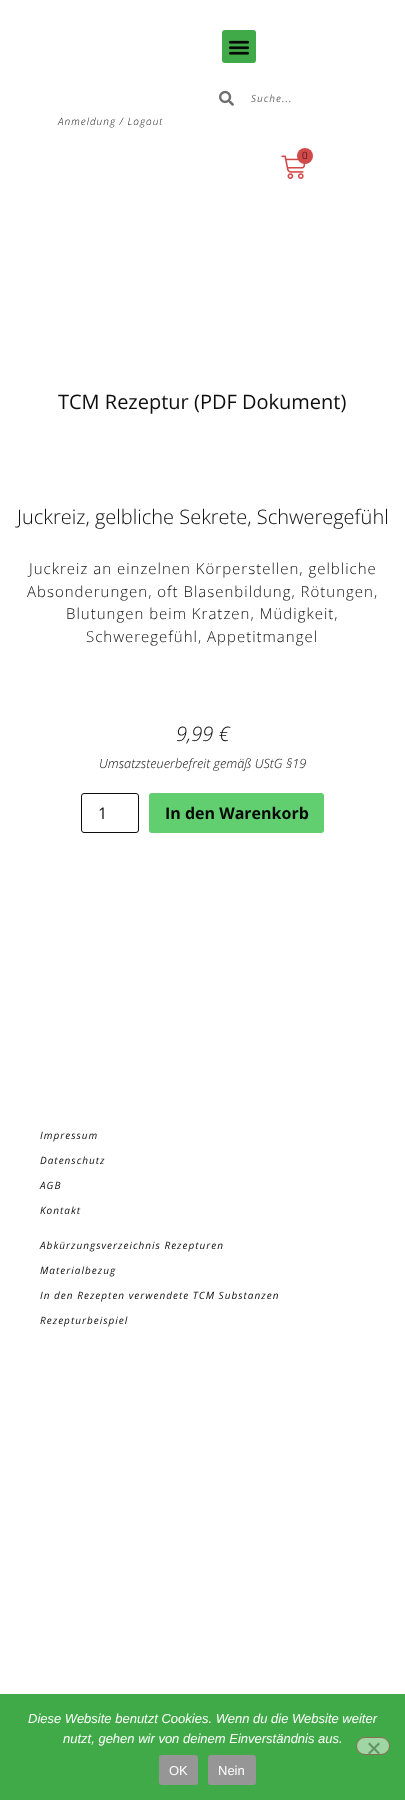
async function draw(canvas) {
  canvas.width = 405;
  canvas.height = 1800;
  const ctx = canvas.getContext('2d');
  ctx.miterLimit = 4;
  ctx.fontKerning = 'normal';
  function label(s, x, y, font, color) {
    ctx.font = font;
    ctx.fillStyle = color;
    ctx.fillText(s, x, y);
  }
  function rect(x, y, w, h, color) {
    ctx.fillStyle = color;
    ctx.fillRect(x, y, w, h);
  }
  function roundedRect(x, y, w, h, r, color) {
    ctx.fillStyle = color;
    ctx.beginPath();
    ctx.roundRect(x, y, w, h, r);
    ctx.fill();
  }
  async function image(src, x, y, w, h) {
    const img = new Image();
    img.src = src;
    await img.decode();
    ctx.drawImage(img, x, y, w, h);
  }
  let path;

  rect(0, 0, 405, 1800, '#fff');
  roundedRect(222, 30, 34, 33, 3, '#41aa48');
  await image('assets/img1.png', 228, 40, 22, 15);
  ctx.letterSpacing = '1px';
  label('Anmeldung / Logout', 58, 125, 'italic 300 10px Open Sans', '#0d0d0d');
  await image('assets/img2.png', 219, 90, 15, 16);
  label('Suche...', 251, 102, 'italic 10px Open Sans', '#6e6e6e');
  await image('assets/img3.png', 281, 155, 25, 24);
  ctx.fillStyle = '#d24949';
  ctx.beginPath();
  ctx.arc(305, 156, 8, 0, 2 * Math.PI);
  ctx.fill();
  ctx.letterSpacing = '0px';
  label('0', 302, 159, '300 10px Open Sans', '#0b0404');
  label('TCM Rezeptur (PDF Dokument)', 58, 409, '20px Open Sans', '#0d0d0d');
  label('Juckreiz, gelbliche Sekrete, Schweregefühl', 17, 524, '300 20px Open Sans', '#0d0d0d');
  ctx.letterSpacing = '1px';
  label('Juckreiz an einzelnen Körperstellen, gelbliche', 29, 574, '300 15px Open Sans', '#0d0d0d');
  label('Absonderungen, oft Blasenbildung, Rötungen,', 27, 597, '300 15px Open Sans', '#0d0d0d');
  label('Blutungen beim Kratzen, Müdigkeit,', 66, 619, '300 15px Open Sans', '#0d0d0d');
  label('Schweregefühl, Appetitmangel', 86, 642, '300 15px Open Sans', '#0d0d0d');
  ctx.letterSpacing = '0px';
  label('9,99 €', 176, 741, 'italic 300 20px Open Sans', '#0d0d0d');
  label('Umsatzsteuerbefreit gemäß UStG §19', 99, 768, 'italic 300 12.75px Open Sans', '#0d0d0d');
  ctx.beginPath();
  ctx.roundRect(81.5, 793.5, 57, 39, 2.5);
  ctx.strokeStyle = '#0d0d0d';
  ctx.stroke();
  label('1', 98, 819, '16px Open Sans', '#0d0d0d');
  roundedRect(149, 793, 175, 40, 3, '#61ce70');
  label('In den Warenkorb', 165, 819, 'bold 16px Open Sans', '#050a06');
  ctx.letterSpacing = '1px';
  label('Impressum', 40, 1139, 'italic 10px Open Sans', '#0d0d0d');
  label('Datenschutz', 40, 1164, 'italic 10px Open Sans', '#0d0d0d');
  label('AGB', 40, 1189, 'italic 10px Open Sans', '#0d0d0d');
  label('Kontakt', 40, 1214, 'italic 10px Open Sans', '#0d0d0d');
  label('Abkürzungsverzeichnis Rezepturen', 40, 1249, 'italic 10px Open Sans', '#0d0d0d');
  label('Materialbezug', 40, 1274, 'italic 10px Open Sans', '#0d0d0d');
  label('In den Rezepten verwendete TCM Substanzen', 40, 1299, 'italic 10px Open Sans', '#0d0d0d');
  label('Rezepturbeispiel', 40, 1324, 'italic 10px Open Sans', '#0d0d0d');
  rect(0, 1694, 405, 106, '#41aa48');
  ctx.letterSpacing = '0px';
  label('Diese Website benutzt Cookies. Wenn du die Website weiter', 28, 1723, 'italic 13px Liberation Sans', '#fff');
  label('nutzt, gehen wir von deinem Einverständnis aus.', 63, 1743, 'italic 13px Liberation Sans', '#fff');
  ctx.fillStyle = '#a0d5a4';
  ctx.beginPath();
  ctx.roundRect(356.5, 1737.5, 33, 17, 8.5);
  ctx.fill();
  ctx.strokeStyle = '#876f57';
  ctx.stroke();
  ctx.fillStyle = '#619564';
  path = new Path2D('M378.5 1742.5L380 1744L369.5 1754.5L368 1753Z');
  ctx.fill(path);
  path = new Path2D('M368 1744L369.5 1742.5L380 1753L378.5 1754.5Z');
  ctx.fill(path);
  roundedRect(159, 1755, 39, 30, 3, '#969696');
  label('OK', 169, 1775, '13px Liberation Sans', '#fff');
  roundedRect(208, 1755, 48, 30, 3, '#969696');
  label('Nein', 218, 1775, '13px Liberation Sans', '#fff');
}

draw(document.querySelector('canvas'));
